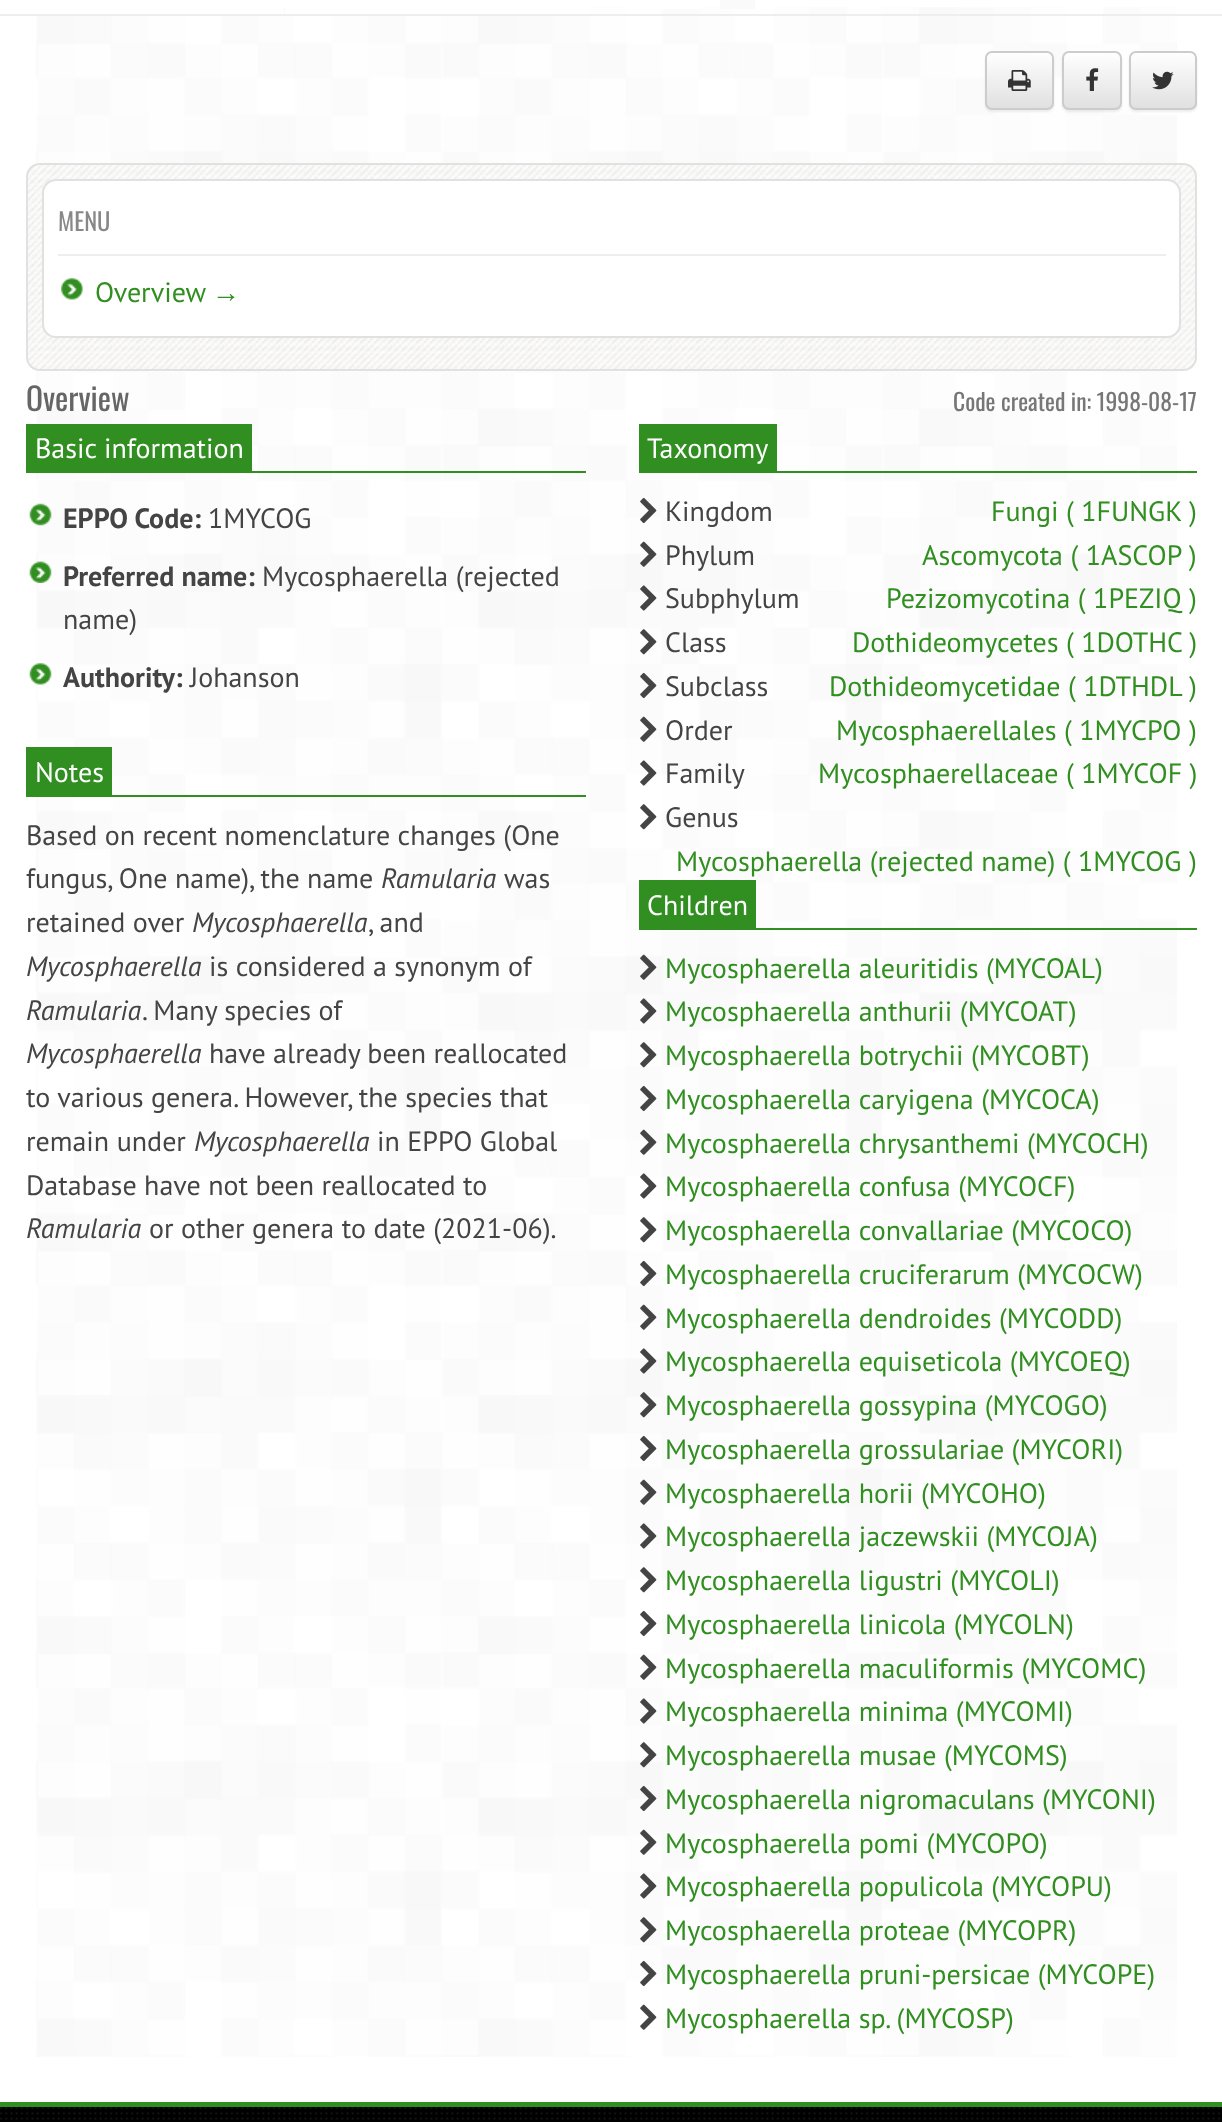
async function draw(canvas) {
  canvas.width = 1222;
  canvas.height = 2122;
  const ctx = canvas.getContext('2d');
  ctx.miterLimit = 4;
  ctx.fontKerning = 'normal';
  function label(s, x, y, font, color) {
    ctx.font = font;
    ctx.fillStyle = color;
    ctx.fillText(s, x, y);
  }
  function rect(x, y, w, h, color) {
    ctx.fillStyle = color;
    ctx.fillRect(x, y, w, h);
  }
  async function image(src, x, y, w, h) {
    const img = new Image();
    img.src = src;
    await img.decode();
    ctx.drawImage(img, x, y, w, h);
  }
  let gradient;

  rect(0, 0, 1222, 2122, '#fff');
  await image('assets/img1.png', 36, 7, 1141, 2050);
  rect(0, 14, 1222, 2, '#eee');
  rect(720, 0, 35, 9, '#fafafa');
  rect(36, 7, 553, 7, '#fff');
  rect(662, 7, 38, 2, '#fff');
  await image('assets/img2.png', 284, 8, 1, 6);
  ctx.fillStyle = '#00000012';
  ctx.filter = 'blur(1px)';
  ctx.beginPath();
  ctx.roundRect(985, 53, 69, 59, 7);
  ctx.fill();
  ctx.filter = 'none';
  ctx.save();
  ctx.beginPath();
  ctx.roundRect(985, 51, 69, 59, 7);
  ctx.clip();
  gradient = ctx.createLinearGradient(1019, 52, 1019, 109);
  gradient.addColorStop(0, '#fff');
  gradient.addColorStop(1, '#e0e0e0');
  ctx.fillStyle = gradient;
  ctx.fillRect(985, 53, 69, 56);
  ctx.restore();
  ctx.beginPath();
  ctx.roundRect(986, 52, 67, 57, 6);
  ctx.strokeStyle = '#ccc';
  ctx.lineWidth = 2;
  ctx.stroke();
  await image('assets/img3.png', 1008, 70, 23, 21);
  ctx.filter = 'blur(1px)';
  ctx.beginPath();
  ctx.roundRect(1062, 53, 60, 59, 7);
  ctx.fill();
  ctx.filter = 'none';
  ctx.save();
  ctx.beginPath();
  ctx.roundRect(1062, 51, 60, 59, 7);
  ctx.clip();
  gradient = ctx.createLinearGradient(1092, 52, 1092, 109);
  gradient.addColorStop(0, '#fff');
  gradient.addColorStop(1, '#e0e0e0');
  ctx.fillStyle = gradient;
  ctx.fillRect(1062, 53, 60, 56);
  ctx.restore();
  ctx.beginPath();
  ctx.roundRect(1063, 52, 58, 57, 6);
  ctx.stroke();
  await image('assets/img4.png', 1086, 68, 13, 23);
  ctx.filter = 'blur(1px)';
  ctx.beginPath();
  ctx.roundRect(1129, 53, 68, 59, 7);
  ctx.fill();
  ctx.filter = 'none';
  ctx.save();
  ctx.beginPath();
  ctx.roundRect(1129, 51, 68, 59, 7);
  ctx.clip();
  gradient = ctx.createLinearGradient(1163, 52, 1163, 109);
  gradient.addColorStop(0, '#fff');
  gradient.addColorStop(1, '#e0e0e0');
  ctx.fillStyle = gradient;
  ctx.fillRect(1129, 53, 68, 56);
  ctx.restore();
  ctx.beginPath();
  ctx.roundRect(1130, 52, 66, 57, 6);
  ctx.stroke();
  await image('assets/img5.png', 1152, 71, 22, 19);
  await image('assets/img6.png', 26, 163, 1171, 208);
  ctx.beginPath();
  ctx.roundRect(27, 164, 1169, 206, 13);
  ctx.strokeStyle = '#e1e1e1';
  ctx.stroke();
  ctx.fillStyle = '#fff';
  ctx.beginPath();
  ctx.roundRect(43, 180, 1137, 157, 13);
  ctx.fill();
  ctx.stroke();
  rect(58, 254, 1108, 2, '#eee');
  label('MENU', 58, 231, '24.5px Oswald', '#888');
  await image('assets/img7.png', 61, 278, 22, 22);
  label('Overview', 95, 302, '28px PT Sans', '#318e20');
  label('→', 212, 302, '28px Liberation Sans', '#318e20');
  label('Overview', 26, 411, '31.5px Oswald', '#666');
  label('Code created in: 1998-08-17', 953, 411, '23.6px Oswald', '#777');
  rect(252, 471, 334, 2, '#318e20');
  rect(26, 424, 226, 49, '#318e20');
  label('Basic information', 35, 458, '28px PT Sans', '#fff');
  await image('assets/img8.png', 29, 503, 23, 23);
  label('EPPO Code:', 63, 528, 'bold 28px PT Sans', '#444');
  label('1MYCOG', 208, 528, '28px PT Sans', '#444');
  await image('assets/img9.png', 29, 561, 23, 22);
  label('Preferred name:', 63, 586, 'bold 28px PT Sans', '#444');
  label('Mycosphaerella (rejected', 262, 586, '28px PT Sans', '#444');
  label('name)', 63, 629, '28px PT Sans', '#444');
  await image('assets/img10.png', 29, 663, 23, 22);
  label('Authority:', 63, 687, 'bold 28px PT Sans', '#444');
  label('Johanson', 190, 687, '28px PT Sans', '#444');
  rect(26, 795, 560, 2, '#318e20');
  rect(26, 747, 86, 48, '#318e20');
  label('Notes', 35, 782, '28px PT Sans', '#fff');
  label('Based on recent nomenclature changes (One', 26, 845, '28px PT Sans', '#444');
  label('fungus, One name), the name', 26, 888, '28px PT Sans', '#444');
  label('Ramularia', 381, 888, 'italic 28px PT Sans', '#444');
  label('was', 504, 888, '28px PT Sans', '#444');
  label('retained over', 26, 932, '28px PT Sans', '#444');
  label('Mycosphaerella', 192, 932, 'italic 28px PT Sans', '#444');
  label(', and', 368, 932, '28px PT Sans', '#444');
  label('Mycosphaerella', 26, 976, 'italic 28px PT Sans', '#444');
  label('is considered a synonym of', 209, 976, '28px PT Sans', '#444');
  label('Ramularia', 26, 1020, 'italic 28px PT Sans', '#444');
  label('. Many species of', 142, 1020, '28px PT Sans', '#444');
  label('Mycosphaerella', 26, 1063, 'italic 28px PT Sans', '#444');
  label('have already been reallocated', 209, 1063, '28px PT Sans', '#444');
  label('to various genera. However, the species that', 26, 1107, '28px PT Sans', '#444');
  label('remain under', 26, 1151, '28px PT Sans', '#444');
  label('Mycosphaerella', 194, 1151, 'italic 28px PT Sans', '#444');
  label('in EPPO Global', 377, 1151, '28px PT Sans', '#444');
  label('Database have not been reallocated to', 26, 1195, '28px PT Sans', '#444');
  label('Ramularia', 26, 1238, 'italic 28px PT Sans', '#444');
  label('or other genera to date (2021-06).', 149, 1238, '28px PT Sans', '#444');
  rect(777, 471, 420, 2, '#318e20');
  rect(639, 424, 138, 49, '#318e20');
  label('Taxonomy', 647, 458, '28px PT Sans', '#fff');
  await image('assets/img11.png', 640, 497, 17, 27);
  label('Kingdom', 665, 521, '28px PT Sans', '#444');
  label('Fungi ( 1FUNGK )', 991, 521, '28px PT Sans', '#318e20');
  await image('assets/img12.png', 640, 541, 17, 26);
  label('Phylum', 665, 565, '28px PT Sans', '#444');
  label('Ascomycota ( 1ASCOP )', 922, 565, '28px PT Sans', '#318e20');
  await image('assets/img13.png', 640, 585, 17, 26);
  label('Subphylum', 665, 608, '28px PT Sans', '#444');
  label('Pezizomycotina ( 1PEZIQ )', 886, 608, '28px PT Sans', '#318e20');
  await image('assets/img14.png', 640, 629, 17, 26);
  label('Class', 665, 652, '28px PT Sans', '#444');
  label('Dothideomycetes ( 1DOTHC )', 852, 652, '28px PT Sans', '#318e20');
  await image('assets/img15.png', 640, 672, 17, 27);
  label('Subclass', 665, 696, '28px PT Sans', '#444');
  label('Dothideomycetidae ( 1DTHDL )', 829, 696, '28px PT Sans', '#318e20');
  await image('assets/img16.png', 640, 716, 17, 26);
  label('Order', 665, 740, '28px PT Sans', '#444');
  label('Mycosphaerellales ( 1MYCPO )', 836, 740, '28px PT Sans', '#318e20');
  await image('assets/img17.png', 640, 760, 17, 26);
  label('Family', 665, 783, '28px PT Sans', '#444');
  label('Mycosphaerellaceae ( 1MYCOF )', 818, 783, '28px PT Sans', '#318e20');
  await image('assets/img18.png', 640, 804, 17, 26);
  label('Genus', 665, 827, '28px PT Sans', '#444');
  label('Mycosphaerella (rejected name) ( 1MYCOG )', 676, 871, '28px PT Sans', '#318e20');
  rect(639, 928, 558, 2, '#318e20');
  rect(639, 880, 117, 48, '#318e20');
  label('Children', 647, 915, '28px PT Sans', '#fff');
  await image('assets/img19.png', 640, 954, 17, 26);
  label('Mycosphaerella aleuritidis (MYCOAL)', 665, 978, '28px PT Sans', '#318e20');
  await image('assets/img20.png', 640, 998, 17, 26);
  label('Mycosphaerella anthurii (MYCOAT)', 665, 1021, '28px PT Sans', '#318e20');
  await image('assets/img21.png', 640, 1042, 17, 26);
  label('Mycosphaerella botrychii (MYCOBT)', 665, 1065, '28px PT Sans', '#318e20');
  await image('assets/img15.png', 640, 1085, 17, 27);
  label('Mycosphaerella caryigena (MYCOCA)', 665, 1109, '28px PT Sans', '#318e20');
  await image('assets/img22.png', 640, 1129, 17, 26);
  label('Mycosphaerella chrysanthemi (MYCOCH)', 665, 1153, '28px PT Sans', '#318e20');
  await image('assets/img23.png', 640, 1173, 17, 26);
  label('Mycosphaerella confusa (MYCOCF)', 665, 1196, '28px PT Sans', '#318e20');
  await image('assets/img18.png', 640, 1217, 17, 26);
  label('Mycosphaerella convallariae (MYCOCO)', 665, 1240, '28px PT Sans', '#318e20');
  await image('assets/img24.png', 640, 1260, 17, 27);
  label('Mycosphaerella cruciferarum (MYCOCW)', 665, 1284, '28px PT Sans', '#318e20');
  await image('assets/img25.png', 640, 1304, 17, 26);
  label('Mycosphaerella dendroides (MYCODD)', 665, 1328, '28px PT Sans', '#318e20');
  await image('assets/img26.png', 640, 1348, 17, 26);
  label('Mycosphaerella equiseticola (MYCOEQ)', 665, 1371, '28px PT Sans', '#318e20');
  await image('assets/img27.png', 640, 1392, 17, 26);
  label('Mycosphaerella gossypina (MYCOGO)', 665, 1415, '28px PT Sans', '#318e20');
  await image('assets/img28.png', 640, 1435, 17, 27);
  label('Mycosphaerella grossulariae (MYCORI)', 665, 1459, '28px PT Sans', '#318e20');
  await image('assets/img29.png', 640, 1479, 17, 26);
  label('Mycosphaerella horii (MYCOHO)', 665, 1503, '28px PT Sans', '#318e20');
  await image('assets/img30.png', 640, 1523, 17, 26);
  label('Mycosphaerella jaczewskii (MYCOJA)', 665, 1546, '28px PT Sans', '#318e20');
  await image('assets/img31.png', 640, 1567, 17, 26);
  label('Mycosphaerella ligustri (MYCOLI)', 665, 1590, '28px PT Sans', '#318e20');
  await image('assets/img32.png', 640, 1610, 17, 27);
  label('Mycosphaerella linicola (MYCOLN)', 665, 1634, '28px PT Sans', '#318e20');
  await image('assets/img33.png', 640, 1654, 17, 26);
  label('Mycosphaerella maculiformis (MYCOMC)', 665, 1678, '28px PT Sans', '#318e20');
  await image('assets/img20.png', 640, 1698, 17, 26);
  label('Mycosphaerella minima (MYCOMI)', 665, 1721, '28px PT Sans', '#318e20');
  await image('assets/img34.png', 640, 1742, 17, 26);
  label('Mycosphaerella musae (MYCOMS)', 665, 1765, '28px PT Sans', '#318e20');
  await image('assets/img35.png', 640, 1785, 17, 27);
  label('Mycosphaerella nigromaculans (MYCONI)', 665, 1809, '28px PT Sans', '#318e20');
  await image('assets/img36.png', 640, 1829, 17, 26);
  label('Mycosphaerella pomi (MYCOPO)', 665, 1853, '28px PT Sans', '#318e20');
  await image('assets/img20.png', 640, 1873, 17, 26);
  label('Mycosphaerella populicola (MYCOPU)', 665, 1896, '28px PT Sans', '#318e20');
  await image('assets/img37.png', 640, 1917, 17, 26);
  label('Mycosphaerella proteae (MYCOPR)', 665, 1940, '28px PT Sans', '#318e20');
  await image('assets/img38.png', 640, 1960, 17, 27);
  label('Mycosphaerella pruni-persicae (MYCOPE)', 665, 1984, '28px PT Sans', '#318e20');
  await image('assets/img39.png', 640, 2004, 17, 26);
  label('Mycosphaerella sp. (MYCOSP)', 665, 2028, '28px PT Sans', '#318e20');
  await image('assets/img40.png', 0, 2107, 1222, 15);
  rect(0, 2102, 1222, 5, '#318e20');
}

draw(document.querySelector('canvas'));
